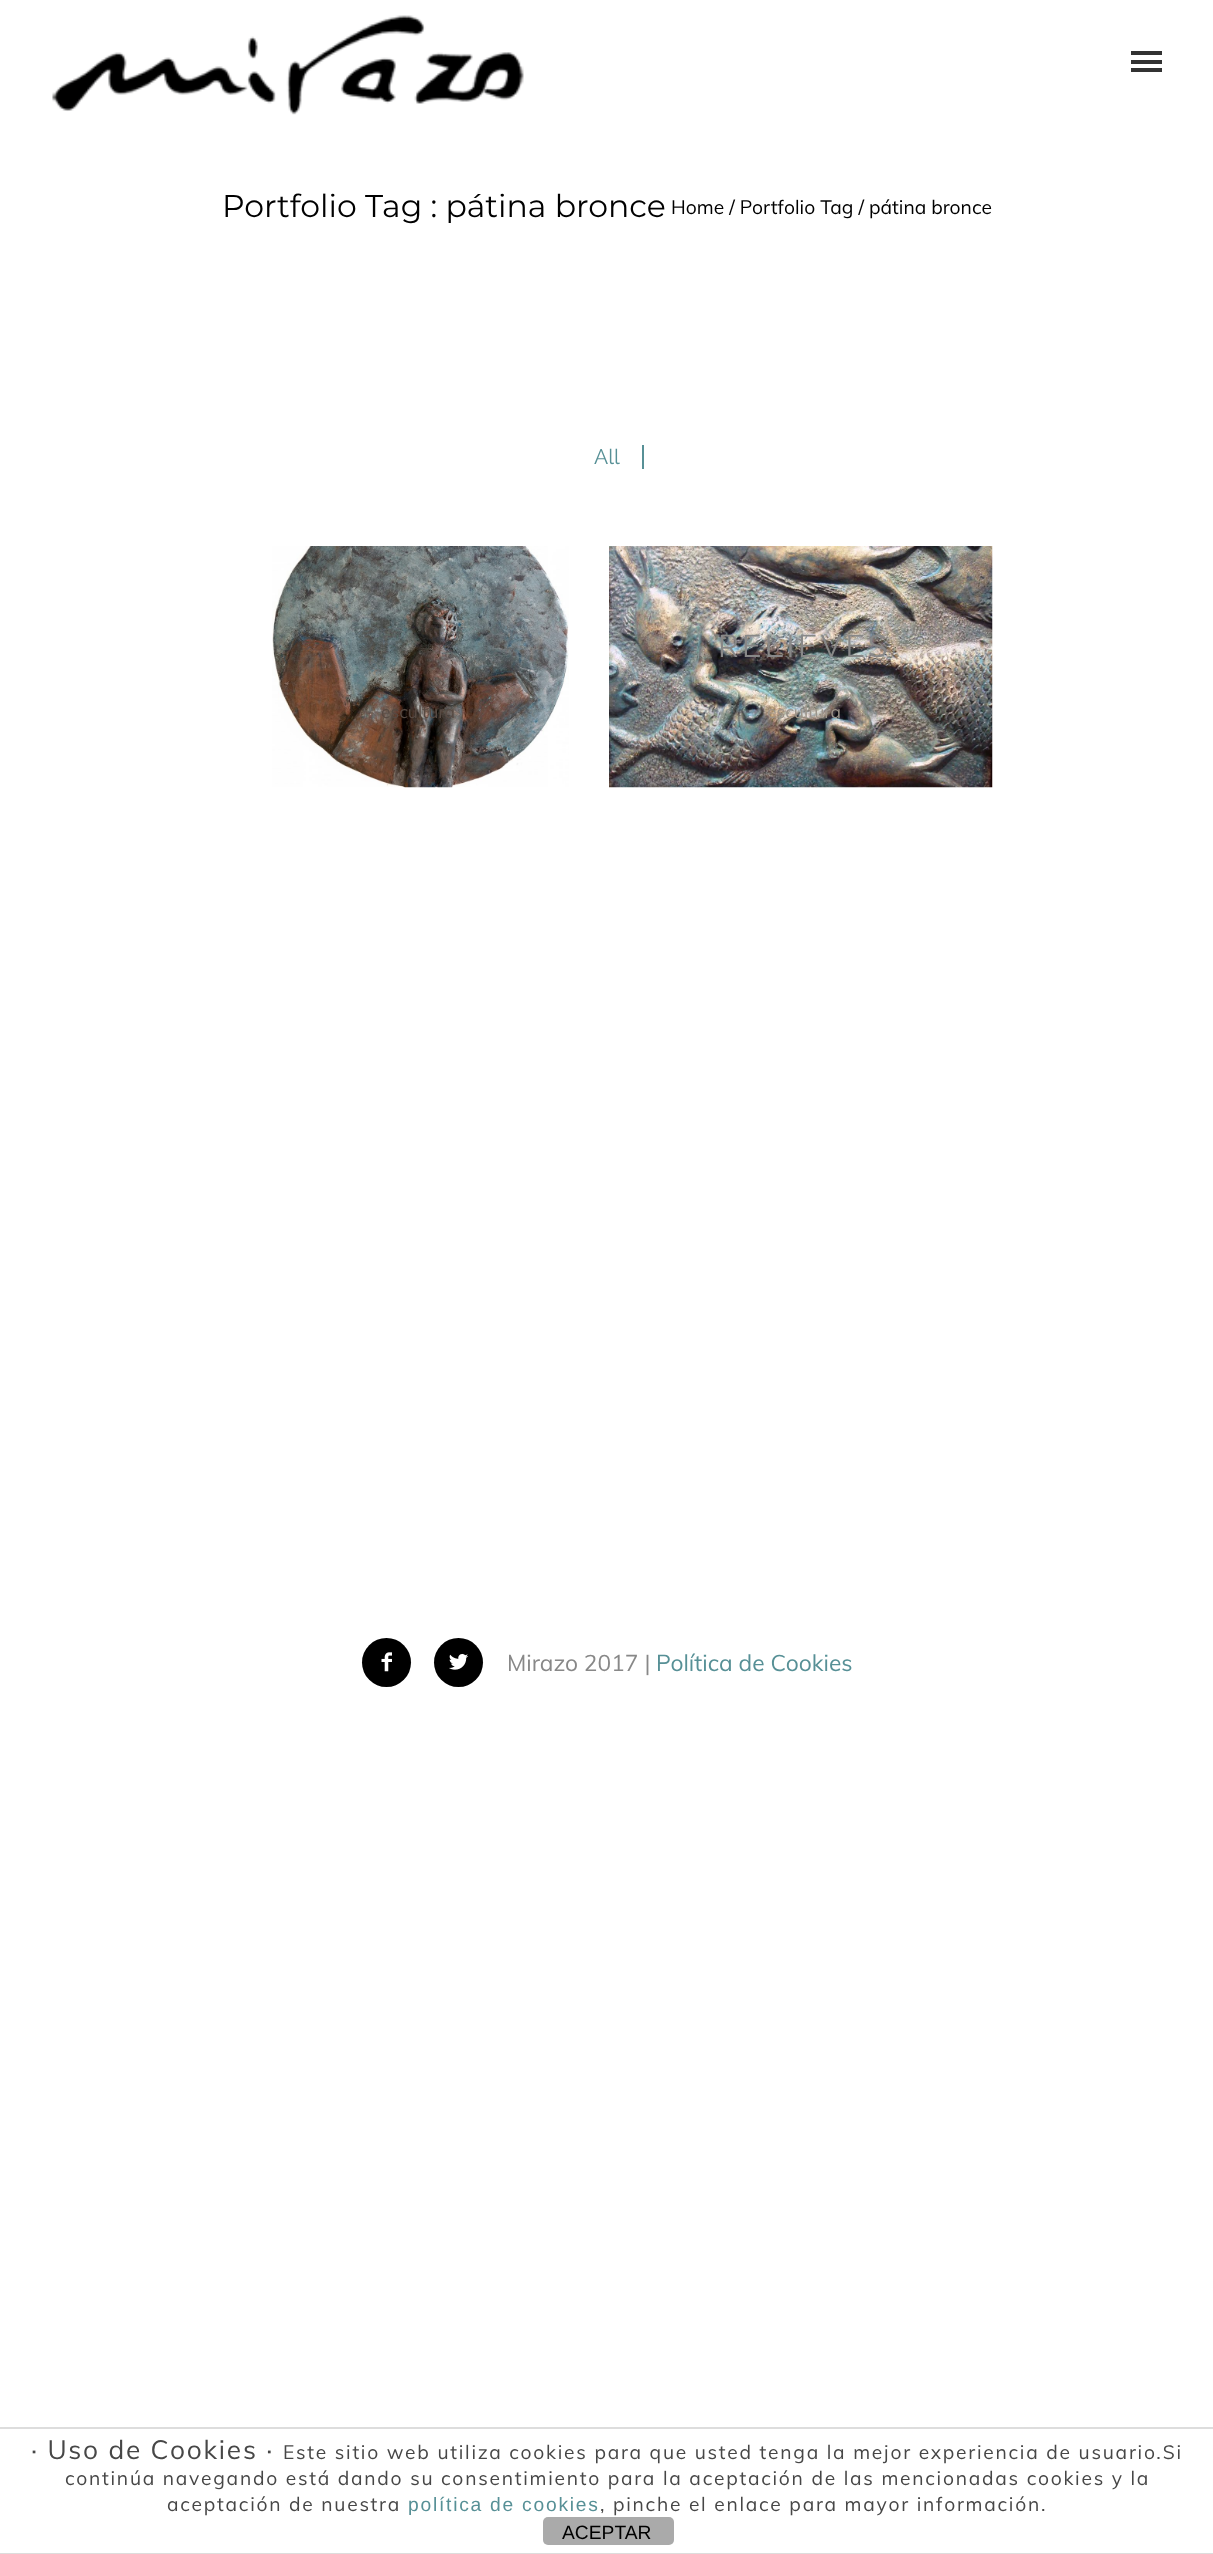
async function draw(canvas) {
  canvas.width = 1213;
  canvas.height = 2554;
  const ctx = canvas.getContext('2d');
  ctx.miterLimit = 4;
  ctx.fontKerning = 'normal';
  function label(s, x, y, font, color) {
    ctx.font = font;
    ctx.fillStyle = color;
    ctx.fillText(s, x, y);
  }
  function rect(x, y, w, h, color) {
    ctx.fillStyle = color;
    ctx.fillRect(x, y, w, h);
  }
  function roundedRect(x, y, w, h, r, color) {
    ctx.fillStyle = color;
    ctx.beginPath();
    ctx.roundRect(x, y, w, h, r);
    ctx.fill();
  }
  async function image(src, x, y, w, h) {
    const img = new Image();
    img.src = src;
    await img.decode();
    ctx.drawImage(img, x, y, w, h);
  }

  rect(0, 0, 1213, 2554, '#fff');
  await image('assets/img1.png', 52, 15, 472, 100);
  rect(1131, 51, 31, 4, '#323232');
  rect(1131, 60, 31, 4, '#323232');
  rect(1131, 68, 31, 4, '#323232');
  label('Portfolio Tag : pátina bronce', 222, 217, '31.5px Montserrat', '#000');
  label('Home / Portfolio Tag / pátina bronce', 671, 214, '19.25px Muli', '#000');
  rect(642, 445, 2, 24, '#579096');
  label('All', 594, 464, '21px Raleway', '#579096');
  await image('assets/img2.png', 272, 546, 297, 242);
  label('escultura', 381, 718, '17.5px Muli', '#574a43');
  await image('assets/img3.png', 609, 546, 384, 242);
  ctx.letterSpacing = '3.5px';
  label('RELIEVES', 718, 657, '31.5px Raleway', '#888');
  ctx.letterSpacing = '0px';
  label('escultura', 767, 718, '17.5px Muli', '#9c948a');
  ctx.fillStyle = '#000';
  ctx.beginPath();
  ctx.arc(386.5, 1662.5, 24.5, 0, 2 * Math.PI);
  ctx.fill();
  await image('assets/img4.png', 381, 1652, 11, 20);
  ctx.beginPath();
  ctx.arc(458.5, 1662.5, 24.5, 0, 2 * Math.PI);
  ctx.fill();
  await image('assets/img5.png', 449, 1653, 19, 17);
  label('Mirazo 2017 |', 507, 1671, '22.75px Muli', '#888');
  label('Política de Cookies', 656, 1671, '22.75px Muli', '#579096');
  rect(0, 2427, 1213, 2, '#ddd');
  rect(0, 2553, 1213, 1, '#ddd');
  ctx.letterSpacing = '1.75px';
  label('· Uso de Cookies ·', 31, 2459, '26.25px Muli', '#474747');
  label('Este sitio web utiliza cookies para que usted tenga la mejor experiencia de usuario.Si', 283, 2459, '19.25px Muli', '#474747');
  label('continúa navegando está dando su consentimiento para la aceptación de las mencionadas cookies y la', 65, 2485, '19.25px Muli', '#474747');
  label('aceptación de nuestra', 167, 2511, '19.25px Muli', '#474747');
  label('política de cookies', 408, 2511, '19.25px Liberation Sans', '#579096');
  label(', pinche el enlace para mayor información.', 600, 2511, '19.25px Muli', '#474747');
  roundedRect(543, 2517, 131, 28, 5, '#aaa');
  ctx.letterSpacing = '0px';
  label('ACEPTAR', 562, 2539, '19.25px Liberation Sans', '#000');
}

draw(document.querySelector('canvas'));
